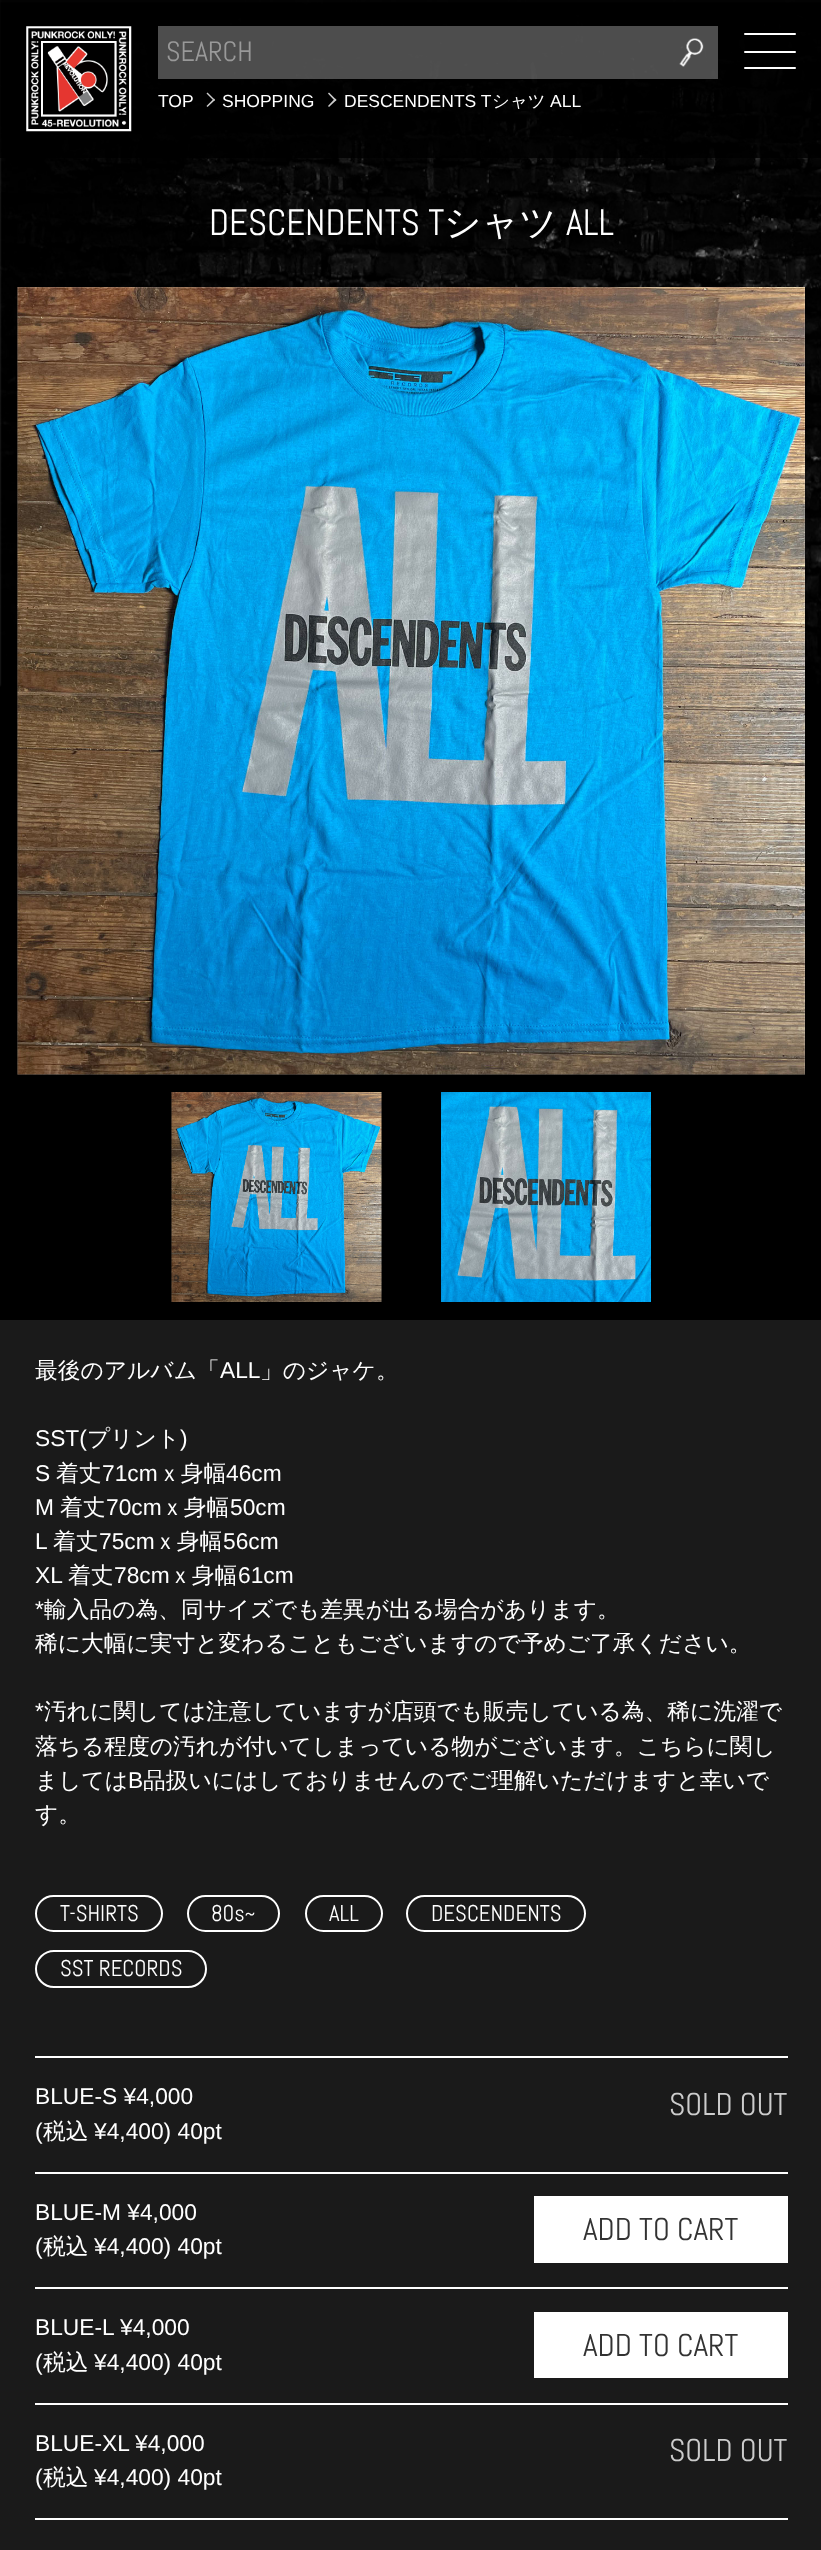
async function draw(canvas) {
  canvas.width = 821;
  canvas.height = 2550;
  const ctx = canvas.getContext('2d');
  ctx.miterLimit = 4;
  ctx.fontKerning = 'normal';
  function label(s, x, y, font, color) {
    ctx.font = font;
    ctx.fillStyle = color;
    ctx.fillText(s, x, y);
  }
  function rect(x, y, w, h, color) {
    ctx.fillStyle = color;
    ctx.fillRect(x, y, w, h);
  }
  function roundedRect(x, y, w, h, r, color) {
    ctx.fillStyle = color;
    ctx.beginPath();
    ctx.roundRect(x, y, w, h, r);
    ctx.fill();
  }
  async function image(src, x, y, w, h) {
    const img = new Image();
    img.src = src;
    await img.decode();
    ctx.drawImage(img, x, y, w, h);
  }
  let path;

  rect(0, 0, 821, 2550, '#000');
  await image('assets/img1.png', 0, 0, 821, 687);
  rect(0, 0, 821, 158, '#000000cc');
  await image('assets/img2.png', 26, 26, 106, 106);
  rect(158, 26, 560, 53, '#ffffff4d');
  await image('assets/img3.png', 679, 38, 25, 29);
  label('SEARCH', 166, 61, '28px Abel', '#999');
  roundedRect(744, 33, 52, 2, 1, '#fff');
  roundedRect(744, 51, 52, 2, 1, '#fff');
  roundedRect(744, 67, 52, 2, 1, '#fff');
  label('TOP', 158, 107, '17.5px Liberation Sans', '#fff');
  ctx.fillStyle = '#ccc';
  path = new Path2D('M207.5 92.5L215 100L214 101L206.5 93.5Z');
  ctx.fill(path);
  path = new Path2D('M214 98.5L215 100L207.5 107L206.5 106Z');
  ctx.fill(path);
  label('SHOPPING', 222, 107, '17.5px Liberation Sans', '#fff');
  ctx.fillStyle = '#ccc';
  path = new Path2D('M329 92.5L336.5 100L335 101L328 93.5Z');
  ctx.fill(path);
  path = new Path2D('M335 98.5L336.5 100L329 107L328 106Z');
  ctx.fill(path);
  label('DESCENDENTS T', 344, 107, '17.5px Liberation Sans', '#fff');
  label('シャツ', 492, 107, '500 17.5px WenQuanYi Zen Hei', '#fff');
  label('ALL', 550, 107, '17.5px Liberation Sans', '#fff');
  label('DESCENDENTS T', 209, 235, '36.75px Abel', '#fff');
  label('シャツ', 444, 235, '500 36.75px WenQuanYi Zen Hei', '#fff');
  label('ALL', 566, 235, '36.75px Abel', '#fff');
  await image('assets/img4.png', 17, 287, 788, 788);
  await image('assets/img5.png', 171, 1092, 211, 210);
  await image('assets/img6.png', 441, 1092, 210, 210);
  rect(0, 1320, 821, 1230, '#1a1a1a');
  label('最後のアルバム「', 35, 1378, '500 22.75px WenQuanYi Zen Hei', '#fff');
  label('ALL', 220, 1378, '22.75px Liberation Sans', '#fff');
  label('」のジャケ。', 260, 1378, '500 22.75px WenQuanYi Zen Hei', '#fff');
  label('SST(', 35, 1446, '22.75px Liberation Sans', '#fff');
  label('プリント', 87, 1446, '500 22.75px WenQuanYi Zen Hei', '#fff');
  label(')', 180, 1446, '22.75px Liberation Sans', '#fff');
  label('S', 35, 1481, '22.75px Liberation Sans', '#fff');
  label('着丈', 56, 1481, '500 22.75px WenQuanYi Zen Hei', '#fff');
  label('71cm', 102, 1481, '22.75px Liberation Sans', '#fff');
  label('ｘ身幅', 158, 1481, '500 22.75px WenQuanYi Zen Hei', '#fff');
  label('46cm', 226, 1481, '22.75px Liberation Sans', '#fff');
  label('M', 35, 1515, '22.75px Liberation Sans', '#fff');
  label('着丈', 60, 1515, '500 22.75px WenQuanYi Zen Hei', '#fff');
  label('70cm', 106, 1515, '22.75px Liberation Sans', '#fff');
  label('ｘ身幅', 161, 1515, '500 22.75px WenQuanYi Zen Hei', '#fff');
  label('50cm', 230, 1515, '22.75px Liberation Sans', '#fff');
  label('L', 35, 1549, '22.75px Liberation Sans', '#fff');
  label('着丈', 53, 1549, '500 22.75px WenQuanYi Zen Hei', '#fff');
  label('75cm', 99, 1549, '22.75px Liberation Sans', '#fff');
  label('ｘ身幅', 154, 1549, '500 22.75px WenQuanYi Zen Hei', '#fff');
  label('56cm', 223, 1549, '22.75px Liberation Sans', '#fff');
  label('XL', 35, 1583, '22.75px Liberation Sans', '#fff');
  label('着丈', 68, 1583, '500 22.75px WenQuanYi Zen Hei', '#fff');
  label('78cm', 114, 1583, '22.75px Liberation Sans', '#fff');
  label('ｘ身幅', 169, 1583, '500 22.75px WenQuanYi Zen Hei', '#fff');
  label('61cm', 238, 1583, '22.75px Liberation Sans', '#fff');
  label('*', 35, 1617, '22.75px Liberation Sans', '#fff');
  label('輸入品の為、同サイズでも差異が出る場合があります。', 44, 1617, '500 22.75px WenQuanYi Zen Hei', '#fff');
  label('稀に大幅に実寸と変わることもございますので予めご了承ください。', 35, 1651, '500 22.75px WenQuanYi Zen Hei', '#fff');
  label('*', 35, 1719, '22.75px Liberation Sans', '#fff');
  label('汚れに関しては注意していますが店頭でも販売している為、稀に洗濯で', 44, 1719, '500 22.75px WenQuanYi Zen Hei', '#fff');
  label('落ちる程度の汚れが付いてしまっている物がございます。こちらに関し', 35, 1754, '500 22.75px WenQuanYi Zen Hei', '#fff');
  label('ましては', 35, 1788, '500 22.75px WenQuanYi Zen Hei', '#fff');
  label('B', 128, 1788, '22.75px Liberation Sans', '#fff');
  label('品扱いにはしておりませんのでご理解いただけますと幸いで', 143, 1788, '500 22.75px WenQuanYi Zen Hei', '#fff');
  label('す。', 35, 1822, '500 22.75px WenQuanYi Zen Hei', '#fff');
  ctx.beginPath();
  ctx.roundRect(36, 1896, 126, 35, 17.5);
  ctx.strokeStyle = '#fff';
  ctx.lineWidth = 2;
  ctx.stroke();
  label('T-SHIRTS', 60, 1921, '22.75px Abel', '#fff');
  ctx.beginPath();
  ctx.roundRect(188, 1896, 91, 35, 17.5);
  ctx.stroke();
  label('80s~', 211, 1921, '22.75px Abel', '#fff');
  ctx.beginPath();
  ctx.roundRect(306, 1896, 76, 35, 17.5);
  ctx.stroke();
  label('ALL', 329, 1921, '22.75px Abel', '#fff');
  ctx.beginPath();
  ctx.roundRect(407, 1896, 178, 35, 17.5);
  ctx.stroke();
  label('DESCENDENTS', 431, 1921, '22.75px Abel', '#fff');
  ctx.beginPath();
  ctx.roundRect(36, 1951, 170, 36, 18);
  ctx.stroke();
  label('SST RECORDS', 60, 1976, '22.75px Abel', '#fff');
  rect(35, 2056, 753, 2, '#fff');
  rect(35, 2172, 753, 2, '#fff');
  label('BLUE-S ¥4,000', 35, 2104, '22.75px Liberation Sans', '#fff');
  label('(', 35, 2139, '22.75px Liberation Sans', '#fff');
  label('税込', 43, 2139, '500 22.75px WenQuanYi Zen Hei', '#fff');
  label('¥4,400) 40pt', 94, 2139, '22.75px Liberation Sans', '#fff');
  label('SOLD OUT', 669, 2115, '31.5px Abel', '#ccc');
  rect(35, 2287, 753, 2, '#fff');
  label('BLUE-M ¥4,000', 35, 2220, '22.75px Liberation Sans', '#fff');
  label('(', 35, 2254, '22.75px Liberation Sans', '#fff');
  label('税込', 43, 2254, '500 22.75px WenQuanYi Zen Hei', '#fff');
  label('¥4,400) 40pt', 94, 2254, '22.75px Liberation Sans', '#fff');
  rect(534, 2196, 254, 67, '#fff');
  label('ADD TO CART', 583, 2240, '31.5px Abel', '#333');
  rect(35, 2403, 753, 2, '#fff');
  label('BLUE-L', 35, 2335, '22.75px Liberation Sans', '#fff');
  label('¥4,000', 120, 2335, '22.75px Liberation Sans', '#fff');
  label('(', 35, 2370, '22.75px Liberation Sans', '#fff');
  label('税込', 43, 2370, '500 22.75px WenQuanYi Zen Hei', '#fff');
  label('¥4,400) 40pt', 94, 2370, '22.75px Liberation Sans', '#fff');
  rect(534, 2312, 254, 66, '#fff');
  label('ADD TO CART', 583, 2356, '31.5px Abel', '#333');
  rect(35, 2518, 753, 2, '#fff');
  label('BLUE-XL', 35, 2451, '22.75px Liberation Sans', '#fff');
  label('¥4,000', 135, 2451, '22.75px Liberation Sans', '#fff');
  label('(', 35, 2485, '22.75px Liberation Sans', '#fff');
  label('税込', 43, 2485, '500 22.75px WenQuanYi Zen Hei', '#fff');
  label('¥4,400) 40pt', 94, 2485, '22.75px Liberation Sans', '#fff');
  label('SOLD OUT', 669, 2461, '31.5px Abel', '#ccc');
}

draw(document.querySelector('canvas'));
